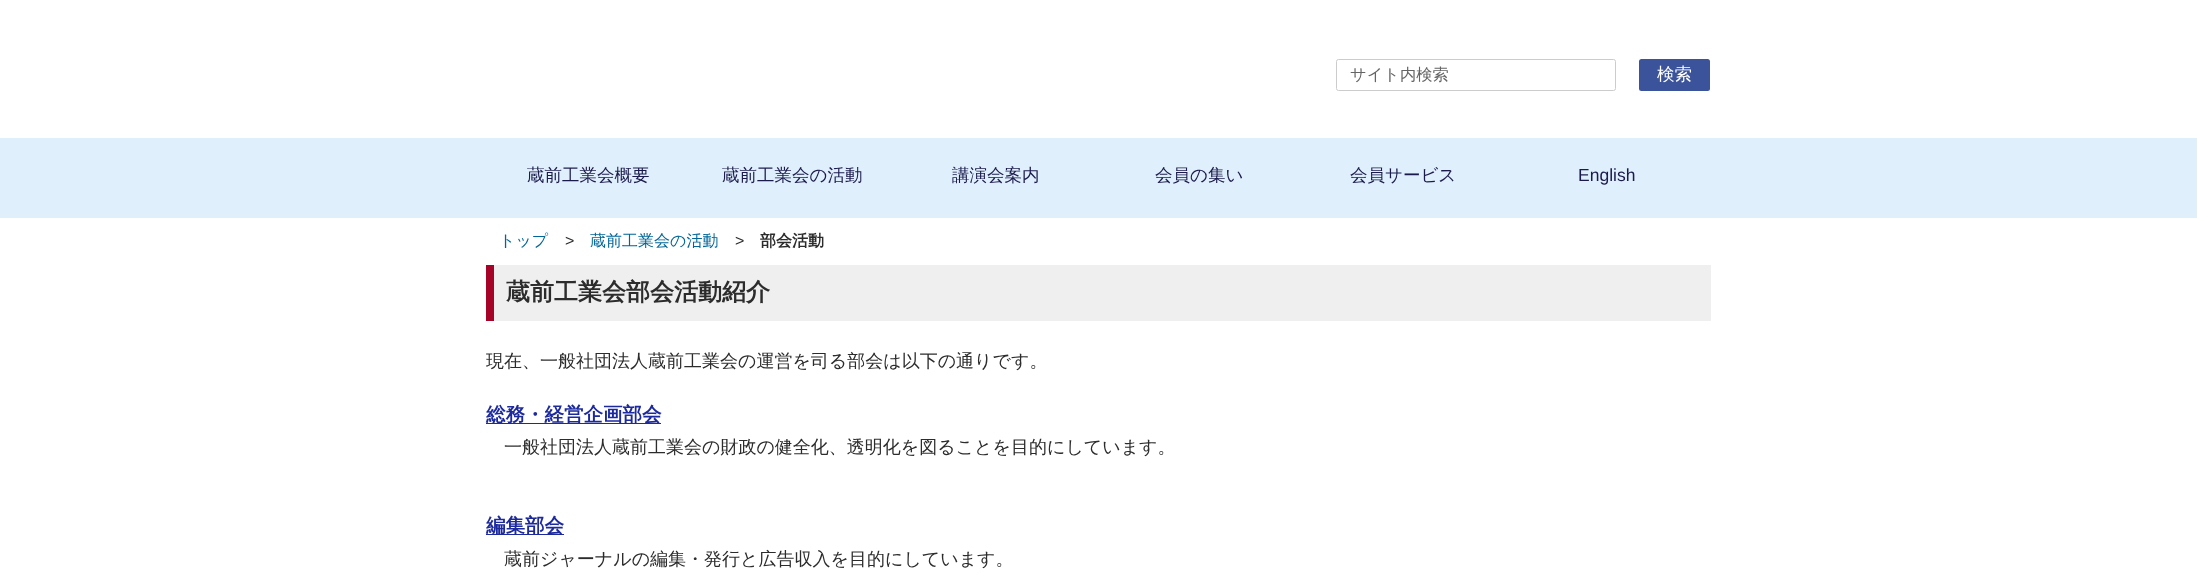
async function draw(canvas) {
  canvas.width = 2197;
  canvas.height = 582;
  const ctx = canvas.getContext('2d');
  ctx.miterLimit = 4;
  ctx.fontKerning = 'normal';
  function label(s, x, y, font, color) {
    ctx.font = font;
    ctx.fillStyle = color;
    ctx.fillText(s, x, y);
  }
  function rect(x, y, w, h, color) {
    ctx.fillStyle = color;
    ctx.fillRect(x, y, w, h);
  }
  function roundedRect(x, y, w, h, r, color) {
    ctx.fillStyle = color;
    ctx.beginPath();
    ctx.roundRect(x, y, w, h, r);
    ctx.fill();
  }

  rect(0, 0, 2197, 582, '#fff');
  ctx.beginPath();
  ctx.roundRect(1336.5, 59.5, 279, 31, 2);
  ctx.strokeStyle = '#ccc';
  ctx.stroke();
  label('サイト内検索', 1350, 80, '500 16.25px WenQuanYi Zen Hei', '#656565');
  roundedRect(1639, 59, 71, 32, 2.5, '#3b539b');
  label('検索', 1657, 80, '500 17.5px WenQuanYi Zen Hei', '#fff');
  rect(0, 138, 2197, 80, '#e0effc');
  label('蔵前工業会概要', 527, 181, '500 17.5px WenQuanYi Zen Hei', '#1a1a4c');
  label('蔵前工業会の活動', 722, 181, '500 17.5px WenQuanYi Zen Hei', '#1a1a4c');
  label('講演会案内', 952, 181, '500 17.5px WenQuanYi Zen Hei', '#1a1a4c');
  label('会員の集い', 1155, 181, '500 17.5px WenQuanYi Zen Hei', '#1a1a4c');
  label('会員サービス', 1350, 181, '500 17.5px WenQuanYi Zen Hei', '#1a1a4c');
  label('English', 1578, 181, '17.5px Liberation Sans', '#1a1a4c');
  label('トップ', 499, 246, '500 16px WenQuanYi Zen Hei', '#069');
  label('>', 565, 246, '16px Liberation Sans', '#2c2c2c');
  label('蔵前工業会の活動', 590, 246, '500 16px WenQuanYi Zen Hei', '#069');
  label('>', 735, 246, '16px Liberation Sans', '#2c2c2c');
  label('部会活動', 760, 246, 'bold 16px WenQuanYi Zen Hei', '#2c2c2c');
  rect(494, 265, 1217, 56, '#efefef');
  rect(486, 265, 8, 56, '#a50328');
  label('蔵前工業会部会活動紹介', 506, 300, 'bold 24px WenQuanYi Zen Hei', '#2c2c2c');
  label('現在、一般社団法人蔵前工業会の運営を司る部会は以下の通りです。', 486, 367, '500 18px WenQuanYi Zen Hei', '#2c2c2c');
  rect(486, 423, 175, 1, '#1d2a9e');
  label('総務・経営企画部会', 486, 421, 'bold 19.5px WenQuanYi Zen Hei', '#1d2a9e');
  label('一般社団法人蔵前工業会の財政の健全化、透明化を図ることを目的にしています。', 504, 453, '500 18px WenQuanYi Zen Hei', '#2c2c2c');
  rect(486, 534, 78, 1, '#1d2a9e');
  label('編集部会', 486, 532, 'bold 19.5px WenQuanYi Zen Hei', '#1d2a9e');
  label('蔵前ジャーナルの編集・発行と広告収入を目的にしています。', 504, 565, '500 18px WenQuanYi Zen Hei', '#2c2c2c');
}

draw(document.querySelector('canvas'));
